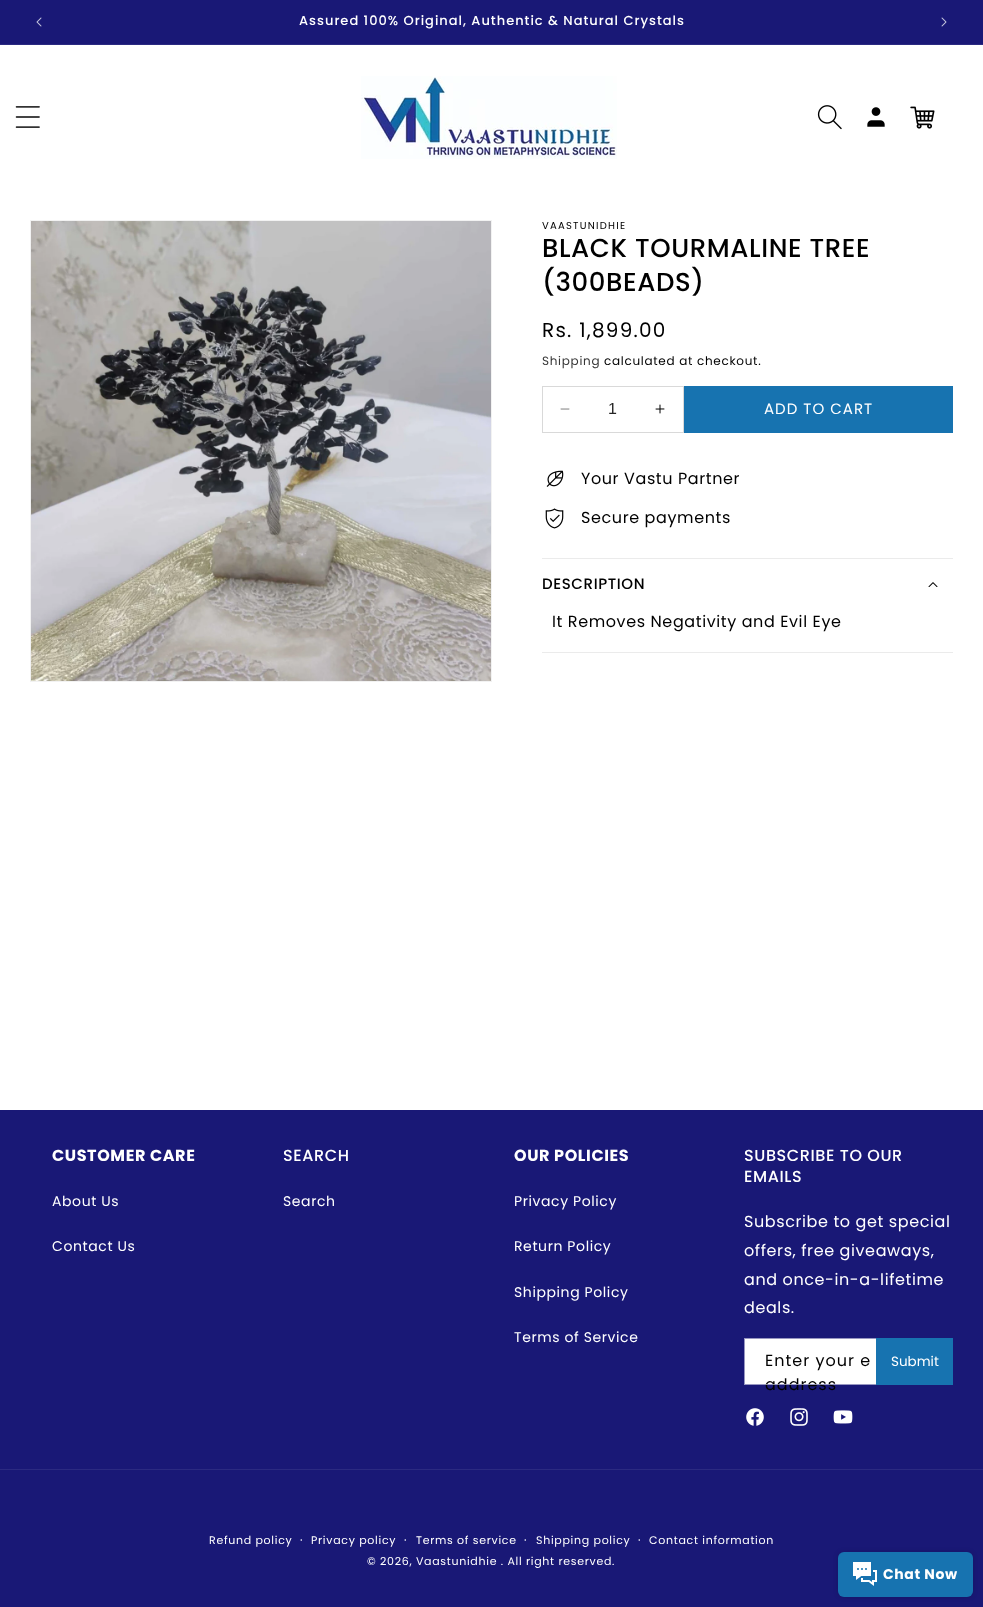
async function draw(canvas) {
  canvas.width = 983;
  canvas.height = 1607;
  const ctx = canvas.getContext('2d');
  ctx.miterLimit = 4;
  ctx.fontKerning = 'normal';
  function label(s, x, y, font, color) {
    ctx.font = font;
    ctx.fillStyle = color;
    ctx.fillText(s, x, y);
  }
  function rect(x, y, w, h, color) {
    ctx.fillStyle = color;
    ctx.fillRect(x, y, w, h);
  }
  function roundedRect(x, y, w, h, r, color) {
    ctx.fillStyle = color;
    ctx.beginPath();
    ctx.roundRect(x, y, w, h, r);
    ctx.fill();
  }
  async function image(src, x, y, w, h) {
    const img = new Image();
    img.src = src;
    await img.decode();
    ctx.drawImage(img, x, y, w, h);
  }

  rect(0, 0, 983, 1607, '#fff');
  rect(0, 0, 983, 44, '#191876');
  rect(0, 44, 983, 1, '#2b2a81');
  await image('assets/img1.png', 36, 17, 6, 10);
  ctx.letterSpacing = '1px';
  label('Assured 100% Original, Authentic & Natural Crystals', 299, 25, '500 13px Poppins', '#fff');
  await image('assets/img2.png', 941, 17, 6, 10);
  await image('assets/img3.png', 15, 106, 25, 22);
  await image('assets/img4.png', 361, 76, 256, 83);
  await image('assets/img5.png', 817, 105, 25, 25);
  await image('assets/img6.png', 867, 107, 18, 20);
  await image('assets/img7.png', 910, 106, 25, 23);
  ctx.strokeStyle = '#f2f2f2';
  ctx.strokeRect(30.5, 220.5, 461, 461);
  await image('assets/img8.png', 31, 221, 460, 460);
  ctx.letterSpacing = '1.25px';
  label('VAASTUNIDHIE', 542, 229, '10px Poppins', '#000');
  ctx.letterSpacing = '0.6px';
  label('BLACK TOURMALINE TREE', 542, 257, '500 26px Poppins', '#000');
  label('(300BEADS)', 542, 291, '500 26px Poppins', '#000');
  ctx.letterSpacing = '1.25px';
  label('Rs. 1,899.00', 542, 337, '20px Poppins', '#000');
  ctx.letterSpacing = '0.7px';
  label('Shipping', 542, 365, '12px Poppins', '#363636');
  label('calculated at checkout.', 604, 365, '12px Poppins', '#000');
  await image('assets/img9.png', 560, 408, 10, 2);
  await image('assets/img10.png', 655, 404, 10, 10);
  ctx.strokeStyle = '#d9d9d9';
  ctx.strokeRect(542.5, 386.5, 141, 46);
  ctx.letterSpacing = '0px';
  label('1', 608, 414, '16px Liberation Sans', '#262626');
  rect(684, 386, 269, 47, '#1773b0');
  ctx.letterSpacing = '1px';
  label('ADD TO CART', 764, 414, '15px Poppins', '#fff');
  await image('assets/img11.png', 546, 470, 18, 17);
  ctx.letterSpacing = '0.6px';
  label('Your Vastu Partner', 581, 484, '16px Poppins', '#000');
  await image('assets/img12.png', 545, 508, 19, 21);
  label('Secure payments', 581, 523, '16px Poppins', '#000');
  rect(542, 558, 411, 1, '#ebebeb');
  rect(542, 652, 411, 1, '#ebebeb');
  label('DESCRIPTION', 542, 589, '500 15px Poppins', '#000');
  await image('assets/img13.png', 928, 582, 10, 5);
  label('It Removes Negativity and Evil Eye', 552, 627, '16px Poppins', '#000');
  rect(0, 1110, 983, 497, '#191876');
  label('CUSTOMER CARE', 52, 1161, 'bold 16px Poppins', '#fff');
  label('About Us', 52, 1206, '14px Poppins', '#fff');
  label('Contact Us', 52, 1251, '14px Poppins', '#fff');
  label('SEARCH', 283, 1161, '500 16px Poppins', '#fff');
  label('Search', 283, 1206, '14px Poppins', '#fff');
  label('OUR POLICIES', 514, 1161, 'bold 16px Poppins', '#fff');
  label('Privacy Policy', 514, 1206, '14px Poppins', '#fff');
  label('Return Policy', 514, 1251, '14px Poppins', '#fff');
  label('Shipping Policy', 514, 1297, '14px Poppins', '#fff');
  label('Terms of Service', 514, 1342, '14px Poppins', '#fff');
  label('SUBSCRIBE TO OUR', 744, 1161, '500 16px Poppins', '#fff');
  label('EMAILS', 744, 1182, '500 16px Poppins', '#fff');
  label('Subscribe to get special', 744, 1227, '16px Poppins', '#fff');
  label('offers, free giveaways,', 744, 1256, '16px Poppins', '#fff');
  label('and once-in-a-lifetime', 744, 1285, '16px Poppins', '#fff');
  label('deals.', 744, 1313, '16px Poppins', '#fff');
  rect(745, 1339, 131, 45, '#fff');
  ctx.letterSpacing = '1px';
  label('address', 765, 1390, '16px Poppins', '#000');
  ctx.strokeStyle = '#ffffff8c';
  ctx.strokeRect(744.5, 1338.5, 208, 46);
  label('Enter your e', 765, 1366, '16px Poppins', '#000');
  rect(876, 1338, 77, 47, '#1773b0');
  ctx.letterSpacing = '0px';
  label('Submit', 891, 1366, '13.5px Poppins', '#fff');
  await image('assets/img14.png', 746, 1408, 18, 18);
  await image('assets/img15.png', 790, 1408, 18, 18);
  await image('assets/img16.png', 833, 1410, 20, 14);
  rect(0, 1469, 983, 1, '#2b2a81');
  ctx.letterSpacing = '0.7px';
  label('Refund policy', 209, 1544, '11px Poppins', '#fff');
  label('·', 300, 1544, '12px Poppins', '#fff');
  label('Privacy policy', 311, 1544, '11px Poppins', '#fff');
  label('·', 404, 1544, '12px Poppins', '#fff');
  label('Terms of service', 416, 1544, '11px Poppins', '#fff');
  label('·', 524, 1544, '12px Poppins', '#fff');
  label('Shipping policy', 536, 1544, '11px Poppins', '#fff');
  label('·', 638, 1544, '12px Poppins', '#fff');
  label('Contact information', 649, 1544, '11px Poppins', '#fff');
  label('© 2026, Vaastunidhie . All right reserved.', 367, 1565, '11px Poppins', '#fff');
  ctx.fillStyle = '#00000026';
  ctx.filter = 'blur(2.5px)';
  ctx.beginPath();
  ctx.roundRect(838, 1552, 135, 45, 6);
  ctx.fill();
  ctx.filter = 'none';
  roundedRect(838, 1552, 135, 45, 6, '#1773b0');
  await image('assets/img17.png', 853, 1562, 24, 24);
  ctx.letterSpacing = '0.6px';
  label('Chat Now', 883, 1579, 'bold 14px Poppins', '#fff');
}

draw(document.querySelector('canvas'));
